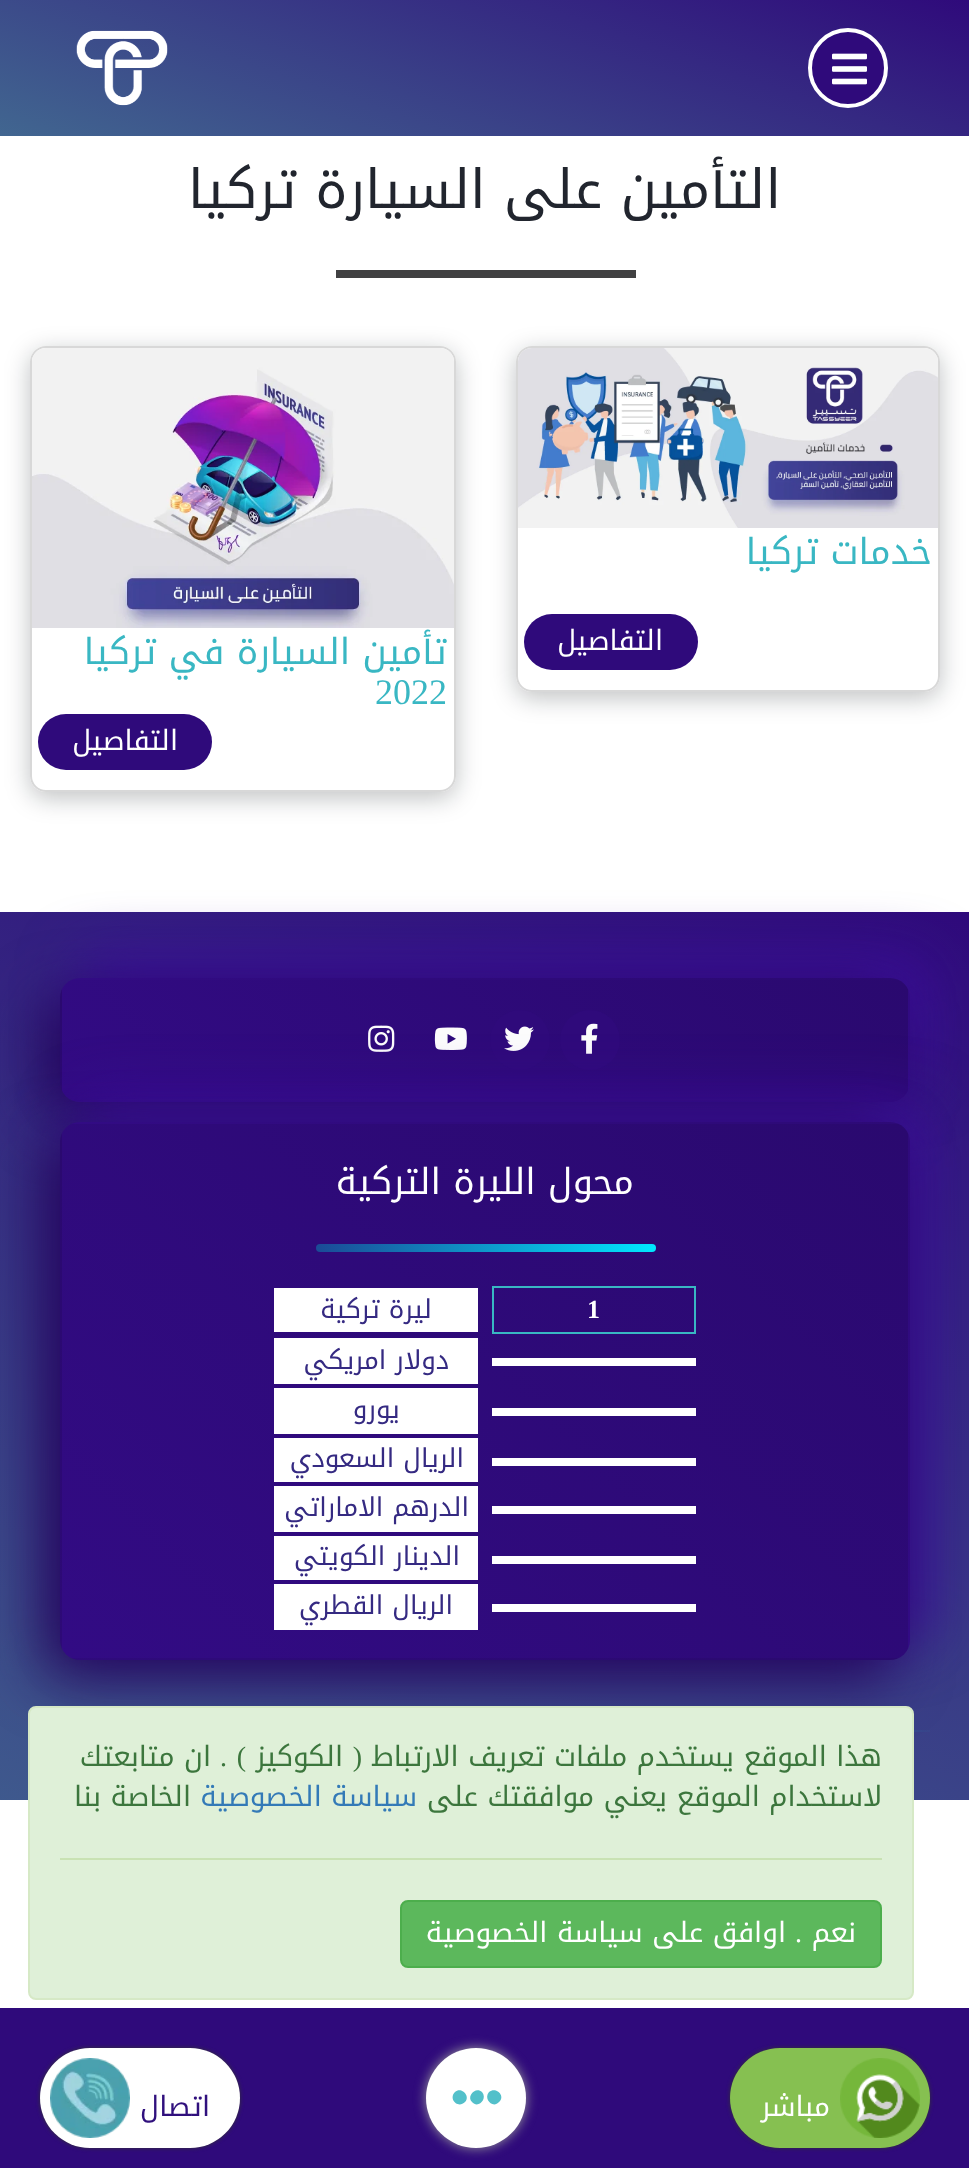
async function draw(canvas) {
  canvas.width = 969;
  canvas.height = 2168;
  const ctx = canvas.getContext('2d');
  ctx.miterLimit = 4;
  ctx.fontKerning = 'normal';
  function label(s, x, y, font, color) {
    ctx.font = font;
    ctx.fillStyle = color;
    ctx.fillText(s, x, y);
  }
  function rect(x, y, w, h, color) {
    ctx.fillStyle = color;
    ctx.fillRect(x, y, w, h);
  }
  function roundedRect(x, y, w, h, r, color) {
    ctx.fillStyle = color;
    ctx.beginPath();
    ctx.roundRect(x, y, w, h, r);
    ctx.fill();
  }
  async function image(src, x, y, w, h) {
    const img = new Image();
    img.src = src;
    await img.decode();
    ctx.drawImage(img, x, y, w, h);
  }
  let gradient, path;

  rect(0, 0, 969, 2168, '#2f0a7b');
  rect(0, 136, 969, 776, '#fff');
  gradient = ctx.createLinearGradient(413, 278, 557, -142);
  gradient.addColorStop(0, '#416690');
  gradient.addColorStop(1, '#2f0a7b');
  ctx.fillStyle = gradient;
  ctx.fillRect(0, 0, 969, 136);
  ctx.fillStyle = '#2f0a7b';
  ctx.beginPath();
  ctx.arc(848, 68, 38, 0, 2 * Math.PI);
  ctx.fill();
  ctx.strokeStyle = '#fff';
  ctx.lineWidth = 4;
  ctx.stroke();
  await image('assets/img1.png', 832, 53, 35, 32);
  await image('assets/img2.png', 76, 30, 92, 76);
  ctx.direction = 'rtl';
  label('التأمين على السيارة تركيا', 781, 208, '54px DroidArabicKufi', '#21252e');
  rect(336, 270, 300, 8, '#414142');
  ctx.save();
  path = new Path2D('M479 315H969V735H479ZM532 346H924C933 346 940 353 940 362V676C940 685 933 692 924 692H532C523 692 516 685 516 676V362C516 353 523 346 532 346Z');
  ctx.clip(path, 'evenodd');
  ctx.fillStyle = '#050a0f40';
  ctx.filter = 'blur(12px)';
  ctx.beginPath();
  ctx.roundRect(516, 352, 424, 346, 16);
  ctx.fill();
  ctx.filter = 'none';
  ctx.restore();
  ctx.beginPath();
  ctx.roundRect(517, 347, 422, 344, 15);
  ctx.strokeStyle = '#d8d8d8';
  ctx.lineWidth = 2;
  ctx.stroke();
  await image('assets/img3.png', 518, 348, 420, 180);
  label('خدمات تركيا', 932, 564, '36px DroidArabicKufi', '#39b7c3');
  roundedRect(524, 614, 174, 56, 28, '#2f0a7b');
  label('التفاصيل', 663, 650, '28px DroidArabicKufi', '#fff');
  ctx.save();
  path = new Path2D('M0 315H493V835H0ZM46 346H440C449 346 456 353 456 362V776C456 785 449 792 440 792H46C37 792 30 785 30 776V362C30 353 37 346 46 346Z');
  ctx.clip(path, 'evenodd');
  ctx.fillStyle = '#050a0f40';
  ctx.filter = 'blur(12px)';
  ctx.beginPath();
  ctx.roundRect(30, 352, 426, 446, 16);
  ctx.fill();
  ctx.filter = 'none';
  ctx.restore();
  ctx.beginPath();
  ctx.roundRect(31, 347, 424, 444, 15);
  ctx.stroke();
  await image('assets/img4.png', 32, 348, 422, 280);
  label('تأمين السيارة في تركيا', 447, 664, '36px DroidArabicKufi', '#39b7c3');
  ctx.direction = 'ltr';
  label('2022', 375, 704, '36px Liberation Serif', '#39b7c3');
  roundedRect(38, 714, 174, 56, 28, '#2f0a7b');
  ctx.direction = 'rtl';
  label('التفاصيل', 178, 750, '28px DroidArabicKufi', '#fff');
  gradient = ctx.createLinearGradient(265, 2099, 705, 821);
  gradient.addColorStop(0, '#416690');
  gradient.addColorStop(1, '#2f0a7b');
  ctx.fillStyle = gradient;
  ctx.fillRect(0, 912, 969, 888);
  ctx.fillStyle = '#3b0d9b';
  ctx.filter = 'blur(29px)';
  ctx.beginPath();
  ctx.roundRect(78, 960, 850, 124, 20);
  ctx.fill();
  ctx.filter = 'none';
  ctx.fillStyle = '#23075b';
  ctx.filter = 'blur(29px)';
  ctx.beginPath();
  ctx.roundRect(42, 996, 850, 124, 20);
  ctx.fill();
  ctx.filter = 'none';
  ctx.save();
  ctx.beginPath();
  ctx.roundRect(60, 978, 850, 124, 20);
  ctx.clip();
  gradient = ctx.createLinearGradient(727, 679, 244, 1162);
  gradient.addColorStop(0, '#2a096f');
  gradient.addColorStop(1, '#320b84');
  ctx.fillStyle = gradient;
  ctx.fillRect(71, 978, 828, 2);
  gradient = ctx.createLinearGradient(-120, 799, -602, 1282);
  gradient.addColorStop(0, '#2a096f');
  gradient.addColorStop(1, '#320b84');
  ctx.fillStyle = gradient;
  ctx.fillRect(60, 989, 2, 102);
  gradient = ctx.createLinearGradient(727, 799, 244, 1282);
  gradient.addColorStop(0, '#2a096f');
  gradient.addColorStop(1, '#320b84');
  ctx.fillStyle = gradient;
  ctx.fillRect(62, 980, 846, 120);
  gradient = ctx.createLinearGradient(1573, 799, 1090, 1282);
  gradient.addColorStop(0, '#2a096f');
  gradient.addColorStop(1, '#320b84');
  ctx.fillStyle = gradient;
  ctx.fillRect(908, 989, 2, 102);
  gradient = ctx.createLinearGradient(727, 919, 244, 1402);
  gradient.addColorStop(0, '#2a096f');
  gradient.addColorStop(1, '#320b84');
  ctx.fillStyle = gradient;
  ctx.fillRect(71, 1100, 828, 2);
  ctx.restore();
  ctx.fillStyle = '#2f0a7b';
  ctx.beginPath();
  ctx.arc(590, 1040, 30, 0, 2 * Math.PI);
  ctx.fill();
  await image('assets/img5.png', 581, 1023, 17, 31);
  ctx.beginPath();
  ctx.arc(520, 1040, 30, 0, 2 * Math.PI);
  ctx.fill();
  await image('assets/img6.png', 504, 1026, 30, 25);
  await image('assets/img7.png', 434, 1027, 33, 23);
  await image('assets/img8.png', 368, 1025, 27, 27);
  ctx.fillStyle = '#3b0d9b';
  ctx.filter = 'blur(29px)';
  ctx.beginPath();
  ctx.roundRect(78, 1104, 850, 538, 20);
  ctx.fill();
  ctx.filter = 'none';
  gradient = ctx.createLinearGradient(30, 1731, 940, 1731);
  gradient.addColorStop(0, '#01e4fd00');
  gradient.addColorStop(0.5, '#01e4fd');
  gradient.addColorStop(1, '#01e4fd00');
  ctx.fillStyle = gradient;
  ctx.fillRect(914, 1730, 16, 2);
  ctx.fillStyle = '#23075b';
  ctx.filter = 'blur(29px)';
  ctx.beginPath();
  ctx.roundRect(42, 1140, 850, 538, 20);
  ctx.fill();
  ctx.filter = 'none';
  ctx.save();
  ctx.beginPath();
  ctx.roundRect(60, 1122, 850, 538, 20);
  ctx.clip();
  gradient = ctx.createLinearGradient(830, 512, 140, 1202);
  gradient.addColorStop(0, '#2a096f');
  gradient.addColorStop(1, '#320b84');
  ctx.fillStyle = gradient;
  ctx.fillRect(71, 1122, 828, 2);
  gradient = ctx.createLinearGradient(-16, 1046, -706, 1736);
  gradient.addColorStop(0, '#2a096f');
  gradient.addColorStop(1, '#320b84');
  ctx.fillStyle = gradient;
  ctx.fillRect(60, 1133, 2, 516);
  gradient = ctx.createLinearGradient(830, 1046, 140, 1736);
  gradient.addColorStop(0, '#2a096f');
  gradient.addColorStop(1, '#320b84');
  ctx.fillStyle = gradient;
  ctx.fillRect(62, 1124, 846, 534);
  gradient = ctx.createLinearGradient(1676, 1046, 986, 1736);
  gradient.addColorStop(0, '#2a096f');
  gradient.addColorStop(1, '#320b84');
  ctx.fillStyle = gradient;
  ctx.fillRect(908, 1133, 2, 516);
  gradient = ctx.createLinearGradient(830, 1580, 140, 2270);
  gradient.addColorStop(0, '#2a096f');
  gradient.addColorStop(1, '#320b84');
  ctx.fillStyle = gradient;
  ctx.fillRect(71, 1658, 828, 2);
  ctx.restore();
  label('محول الليرة التركية', 634, 1194, '36px DroidArabicKufi', '#fff');
  gradient = ctx.createLinearGradient(316, 1248, 656, 1248);
  gradient.addColorStop(0, '#1b4a96');
  gradient.addColorStop(1, '#00e7ff');
  ctx.fillStyle = gradient;
  ctx.beginPath();
  ctx.roundRect(316, 1244, 340, 8, 4);
  ctx.fill();
  ctx.strokeStyle = '#39b7c3';
  ctx.strokeRect(493, 1287, 202, 46);
  ctx.direction = 'ltr';
  label('1', 587, 1318, 'bold 26px Liberation Serif', '#fff');
  rect(274, 1288, 204, 44, '#fff');
  ctx.direction = 'rtl';
  label('ليرة تركية', 432, 1318, '26px DroidArabicKufi', '#352a82');
  rect(492, 1358, 204, 8, '#fff');
  rect(274, 1338, 204, 46, '#fff');
  label('دولار امريكي', 449, 1369, '26px DroidArabicKufi', '#352a82');
  rect(492, 1408, 204, 8, '#fff');
  rect(274, 1388, 204, 46, '#fff');
  label('يورو', 400, 1418, '26px DroidArabicKufi', '#352a82');
  rect(492, 1458, 204, 8, '#fff');
  rect(274, 1438, 204, 44, '#fff');
  label('الريال السعودي', 464, 1467, '26px DroidArabicKufi', '#352a82');
  rect(492, 1506, 204, 8, '#fff');
  rect(274, 1486, 204, 46, '#fff');
  label('الدرهم الاماراتي', 469, 1516, '26px DroidArabicKufi', '#352a82');
  rect(492, 1556, 204, 8, '#fff');
  rect(274, 1536, 204, 44, '#fff');
  label('الدينار الكويتي', 460, 1565, '26px DroidArabicKufi', '#352a82');
  rect(492, 1604, 204, 8, '#fff');
  rect(274, 1584, 204, 46, '#fff');
  label('الريال القطري', 453, 1614, '26px DroidArabicKufi', '#352a82');
  rect(0, 1800, 969, 208, '#fff');
  ctx.fillStyle = '#dff0d8';
  ctx.beginPath();
  ctx.roundRect(29, 1707, 884, 292, 7);
  ctx.fill();
  ctx.strokeStyle = '#d6e9c6';
  ctx.stroke();
  label('هذا الموقع يستخدم ملفات تعريف الارتباط', 882, 1766, '28px DroidArabicKufi', '#3c763d');
  label('(', 362, 1766, '28px Liberation Serif', '#3c763d');
  label('الكوكيز', 343, 1766, '28px DroidArabicKufi', '#3c763d');
  label(')', 246, 1766, '28px Liberation Serif', '#3c763d');
  label('.', 227, 1766, '28px Liberation Serif', '#3c763d');
  label('ان متابعتك', 211, 1766, '28px DroidArabicKufi', '#3c763d');
  label('لاستخدام الموقع يعني موافقتك على', 882, 1806, '28px DroidArabicKufi', '#3c763d');
  label('سياسة الخصوصية', 417, 1806, '28px DroidArabicKufi', '#337ab7');
  label('الخاصة بنا', 191, 1806, '28px DroidArabicKufi', '#3c763d');
  rect(60, 1858, 822, 2, '#c9e2b3');
  ctx.fillStyle = '#5cb85c';
  ctx.beginPath();
  ctx.roundRect(401, 1901, 480, 66, 7);
  ctx.fill();
  ctx.strokeStyle = '#4cae4c';
  ctx.stroke();
  label('نعم', 856, 1942, '28px DroidArabicKufi', '#fff');
  label('.', 802, 1942, '28px Liberation Serif', '#fff');
  label('اوافق على سياسة الخصوصية', 786, 1942, '28px DroidArabicKufi', '#fff');
  ctx.fillStyle = '#333';
  ctx.filter = 'blur(2px)';
  ctx.beginPath();
  ctx.roundRect(730, 2048, 200, 100, 50);
  ctx.fill();
  ctx.filter = 'none';
  roundedRect(730, 2048, 200, 100, 50, '#86c051');
  await image('assets/img9.png', 840, 2058, 80, 80);
  label('مباشر', 830, 2116, '28px DroidArabicKufi', '#fff');
  ctx.fillStyle = '#9a9a9a';
  ctx.filter = 'blur(6px)';
  ctx.beginPath();
  ctx.roundRect(426, 2048, 100, 100, 50);
  ctx.fill();
  ctx.filter = 'none';
  ctx.fillStyle = '#fff';
  ctx.beginPath();
  ctx.arc(476, 2098, 50, 0, 2 * Math.PI);
  ctx.fill();
  ctx.fillStyle = '#53c0ca';
  path = new Path2D('M482 2092C488 2099 478 2109 472 2102C466 2096 476 2086 482 2092ZM489 2092C496 2086 506 2096 499 2102C493 2109 483 2099 489 2092ZM455 2092C461 2086 471 2096 465 2102C458 2109 448 2099 455 2092Z');
  ctx.fill(path);
  ctx.fillStyle = '#333';
  ctx.filter = 'blur(2px)';
  ctx.beginPath();
  ctx.roundRect(40, 2048, 200, 100, 50);
  ctx.fill();
  ctx.filter = 'none';
  roundedRect(40, 2048, 200, 100, 50, '#fff');
  label('اتصال', 210, 2116, '28px DroidArabicKufi', '#30107d');
  await image('assets/img10.png', 50, 2058, 80, 80);
}

draw(document.querySelector('canvas'));
